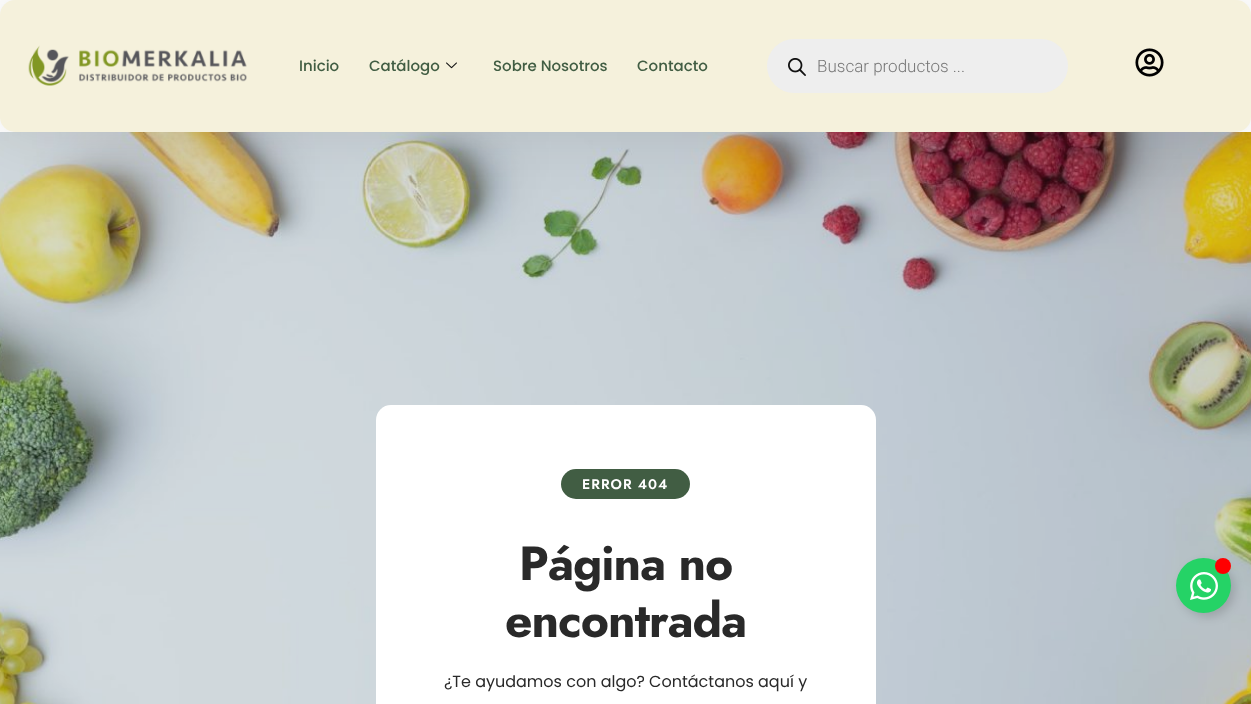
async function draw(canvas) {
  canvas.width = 1251;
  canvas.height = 704;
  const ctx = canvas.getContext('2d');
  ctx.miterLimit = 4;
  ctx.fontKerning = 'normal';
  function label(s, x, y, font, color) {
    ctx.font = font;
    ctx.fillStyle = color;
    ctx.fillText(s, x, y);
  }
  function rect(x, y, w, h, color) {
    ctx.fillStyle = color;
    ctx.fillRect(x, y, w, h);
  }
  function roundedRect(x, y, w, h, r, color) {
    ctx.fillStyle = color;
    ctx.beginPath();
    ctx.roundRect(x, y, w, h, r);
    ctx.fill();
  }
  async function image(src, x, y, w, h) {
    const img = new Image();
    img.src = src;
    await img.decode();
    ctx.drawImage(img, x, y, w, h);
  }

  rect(0, 0, 1251, 704, '#fff');
  await image('assets/img5.png', 0, 132, 1251, 572);
  ctx.fillStyle = '#0000001a';
  ctx.filter = 'blur(30px)';
  ctx.beginPath();
  ctx.roundRect(0, 0, 1251, 132, 15);
  ctx.fill();
  ctx.filter = 'none';
  roundedRect(0, 0, 1251, 132, 15, '#f5f1dc');
  await image('assets/img1.png', 28, 45, 219, 41);
  label('Inicio', 299, 71, '500 15px Poppins', '#415d43');
  label('Catálogo', 369, 71, '500 15px Poppins', '#415d43');
  await image('assets/img2.png', 446, 62, 11, 7);
  label('Sobre Nosotros', 493, 71, '500 15px Poppins', '#415d43');
  label('Contacto', 637, 71, '500 15px Poppins', '#415d43');
  roundedRect(767, 39, 301, 54, 27, '#eee');
  await image('assets/img3.png', 788, 58, 18, 18);
  label('Buscar productos ...', 817, 72, '300 17px Roboto', '#777');
  await image('assets/img4.png', 1135, 48, 29, 29);
  roundedRect(376, 405, 500, 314, 15, '#fff');
  roundedRect(561, 469, 129, 30, 15, '#415d43');
  ctx.letterSpacing = '1px';
  label('ERROR 404', 582, 489, '600 14px Jost', '#fff');
  ctx.letterSpacing = '-1px';
  label('Página no', 519, 580, 'bold 48px Jost', '#292929');
  label('encontrada', 505, 637, 'bold 48px Jost', '#292929');
  ctx.letterSpacing = '0px';
  label('¿Te ayudamos con algo? Contáctanos aquí y', 444, 687, '16px Poppins', '#292929');
  ctx.fillStyle = '#00000026';
  ctx.filter = 'blur(5px)';
  ctx.beginPath();
  ctx.roundRect(1180, 562, 55, 55, 27.5);
  ctx.fill();
  ctx.filter = 'none';
  ctx.fillStyle = '#25d366';
  ctx.beginPath();
  ctx.arc(1203.5, 585.5, 27.5, 0, 2 * Math.PI);
  ctx.fill();
  await image('assets/img6.png', 1190, 572, 28, 28);
  ctx.fillStyle = '#f00';
  ctx.beginPath();
  ctx.arc(1223, 566, 8, 0, 2 * Math.PI);
  ctx.fill();
}

draw(document.querySelector('canvas'));
